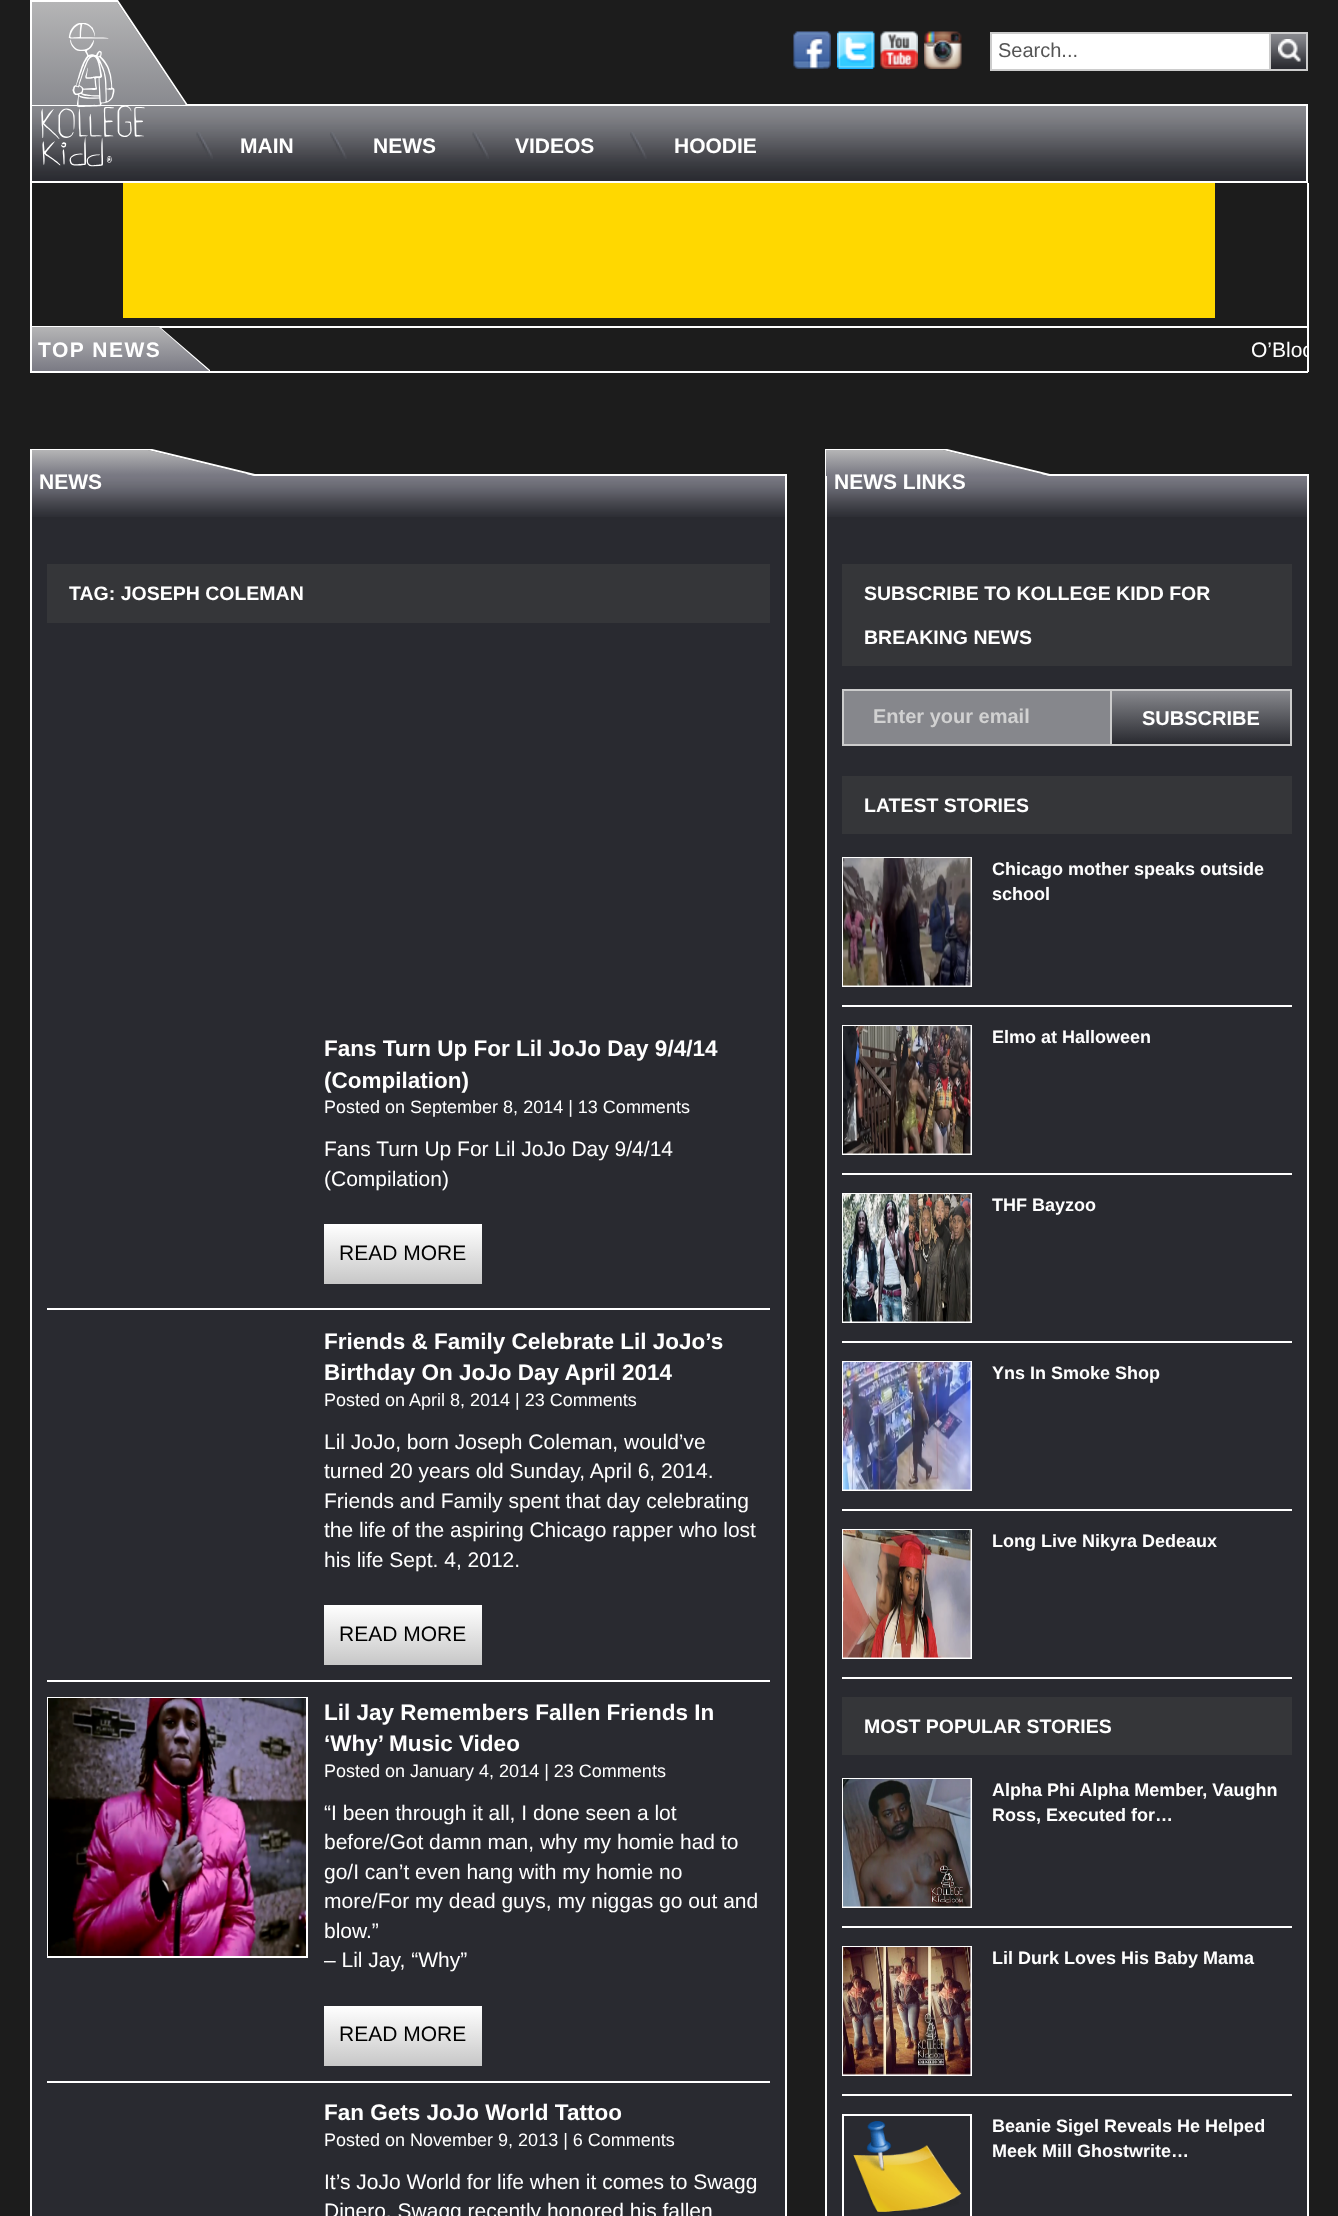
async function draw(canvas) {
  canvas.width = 1338;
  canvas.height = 2216;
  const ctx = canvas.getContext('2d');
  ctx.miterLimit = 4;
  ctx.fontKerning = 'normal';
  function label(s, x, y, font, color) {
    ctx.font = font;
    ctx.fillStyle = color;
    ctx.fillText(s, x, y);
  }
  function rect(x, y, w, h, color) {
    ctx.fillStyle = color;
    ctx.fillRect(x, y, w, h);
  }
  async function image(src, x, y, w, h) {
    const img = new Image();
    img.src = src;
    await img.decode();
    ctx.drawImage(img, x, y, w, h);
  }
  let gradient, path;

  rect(0, 0, 1338, 2216, '#1c1c1c');
  await image('assets/img1.png', 793, 31, 38, 38);
  await image('assets/img2.png', 837, 31, 38, 38);
  await image('assets/img3.png', 880, 31, 38, 38);
  await image('assets/img4.png', 924, 31, 38, 38);
  rect(992, 34, 277, 35, '#fff');
  rect(990, 32, 279, 2, '#ccc');
  rect(990, 69, 279, 2, '#ccc');
  rect(990, 32, 2, 39, '#ccc');
  label('Search...', 998, 57, '20px Liberation Sans', '#555');
  await image('assets/img5.png', 1271, 34, 35, 35);
  ctx.strokeStyle = '#ccc';
  ctx.lineWidth = 2;
  ctx.strokeRect(1270, 33, 37, 37);
  await image('assets/img6.png', 1278, 39, 23, 23);
  await image('assets/img7.png', 32, 106, 1274, 75);
  ctx.strokeStyle = '#fff';
  ctx.strokeRect(31, 105, 1276, 77);
  gradient = ctx.createLinearGradient(109, 1.5, 109, 105);
  gradient.addColorStop(0, '#b5b5b6');
  gradient.addColorStop(1, '#898a8f');
  ctx.fillStyle = gradient;
  path = new Path2D('M32 105V2H117L186 105');
  ctx.fill(path);
  ctx.fillStyle = '#fff';
  path = new Path2D('M186 105L117 2H32V105H30V0H118L188 105Z');
  ctx.fill(path);
  await image('assets/img8.png', 41, 23, 104, 144);
  await image('assets/img9.png', 196, 132, 17, 27);
  label('MAIN', 240, 153, 'bold 21px Liberation Sans', '#fff');
  await image('assets/img10.png', 330, 132, 17, 27);
  label('NEWS', 373, 153, 'bold 21px Liberation Sans', '#fff');
  await image('assets/img11.png', 472, 132, 17, 27);
  label('VIDEOS', 515, 153, 'bold 21px Liberation Sans', '#fff');
  await image('assets/img12.png', 630, 132, 17, 27);
  label('HOODIE', 674, 153, 'bold 21px Liberation Sans', '#fff');
  rect(1307, 183, 2, 144, '#fff');
  rect(30, 326, 1278, 2, '#fff');
  rect(30, 183, 2, 144, '#fff');
  rect(123, 183, 1092, 135, '#ffd800');
  rect(1307, 327, 2, 45, '#fff');
  rect(30, 371, 1278, 2, '#fff');
  ctx.save();
  ctx.beginPath();
  ctx.rect(30, 327, 180, 44);
  ctx.clip();
  path = new Path2D('M210 372L158 328H32V372H30V327H160L210 370Z');
  ctx.fill(path);
  gradient = ctx.createLinearGradient(121, 327, 121, 372);
  gradient.addColorStop(0, '#b5b5b6');
  gradient.addColorStop(1, '#797983');
  ctx.fillStyle = gradient;
  path = new Path2D('M32 372V327H159L210 372');
  ctx.fill(path);
  ctx.restore();
  ctx.letterSpacing = '1.5px';
  label('TOP NEWS', 38, 357, 'bold 21px Liberation Sans', '#fff');
  ctx.save();
  ctx.beginPath();
  ctx.rect(30, 327, 1277, 44);
  ctx.clip();
  ctx.letterSpacing = '0px';
  label('O’Bloc', 1251, 357, '21px Liberation Sans', '#fff');
  ctx.restore();
  rect(32, 517, 753, 1699, '#292a30');
  await image('assets/img13.png', 32, 476, 753, 41);
  rect(247, 474, 539, 2, '#fff');
  rect(785, 474, 2, 45, '#fff');
  gradient = ctx.createLinearGradient(143, 450, 143, 475);
  gradient.addColorStop(0, '#b5b5b6');
  gradient.addColorStop(1, '#797983');
  ctx.fillStyle = gradient;
  path = new Path2D('M32 476V450H148L255 476');
  ctx.fill(path);
  rect(30, 474, 2, 1742, '#fff');
  ctx.save();
  ctx.beginPath();
  ctx.rect(30, 449, 225, 27);
  ctx.clip();
  path = new Path2D('M255 476L148 450H32V476H30V448H148L255 474Z');
  ctx.fill(path);
  ctx.restore();
  ctx.letterSpacing = '0px';
  label('NEWS', 39, 489, 'bold 21px Liberation Sans', '#fff');
  rect(785, 519, 2, 1697, '#fff');
  rect(47, 564, 723, 59, '#353639');
  label('TAG: JOSEPH COLEMAN', 69, 600, 'bold 19.5px Liberation Sans', '#fff');
  rect(47, 1308, 723, 2, '#fff');
  label('Fans Turn Up For Lil JoJo Day 9/4/14', 324, 1056, 'bold 22.5px Liberation Sans', '#fff');
  label('(Compilation)', 324, 1088, 'bold 22.5px Liberation Sans', '#fff');
  label('Posted on September 8, 2014 | 13 Comments', 324, 1113, '18px Liberation Sans', '#fff');
  label('Fans Turn Up For Lil JoJo Day 9/4/14', 324, 1156, '21px Liberation Sans', '#fff');
  label('(Compilation)', 324, 1186, '21px Liberation Sans', '#fff');
  gradient = ctx.createLinearGradient(403, 1224, 403, 1284);
  gradient.addColorStop(0, '#fff');
  gradient.addColorStop(1, '#c7c7c7');
  ctx.fillStyle = gradient;
  ctx.fillRect(324, 1224, 158, 60);
  label('READ MORE', 339, 1260, '21px Liberation Sans', '#000');
  rect(47, 1680, 723, 2, '#fff');
  label('Friends & Family Celebrate Lil JoJo’s', 324, 1349, 'bold 22.5px Liberation Sans', '#fff');
  label('Birthday On JoJo Day April 2014', 324, 1380, 'bold 22.5px Liberation Sans', '#fff');
  label('Posted on', 324, 1406, '18px Liberation Sans', '#fff');
  label('April 8, 2014 | 23 Comments', 409, 1406, '18px Liberation Sans', '#fff');
  label('Lil JoJo, born Joseph Coleman, would’ve', 324, 1449, '21px Liberation Sans', '#fff');
  label('turned 20 years old Sunday, April 6, 2014.', 324, 1478, '21px Liberation Sans', '#fff');
  label('Friends and Family spent that day celebrating', 324, 1508, '21px Liberation Sans', '#fff');
  label('the life of the aspiring Chicago rapper who lost', 324, 1537, '21px Liberation Sans', '#fff');
  label('his life Sept. 4, 2012.', 324, 1567, '21px Liberation Sans', '#fff');
  gradient = ctx.createLinearGradient(403, 1605, 403, 1665);
  gradient.addColorStop(0, '#fff');
  gradient.addColorStop(1, '#c7c7c7');
  ctx.fillStyle = gradient;
  ctx.fillRect(324, 1605, 158, 60);
  label('READ MORE', 339, 1641, '21px Liberation Sans', '#000');
  rect(47, 2081, 723, 2, '#fff');
  ctx.strokeRect(48, 1698, 259, 259);
  await image('assets/img14.png', 48, 1698, 258, 258);
  label('Lil Jay Remembers Fallen Friends In', 324, 1720, 'bold 22.5px Liberation Sans', '#fff');
  label('‘Why’ Music Video', 324, 1751, 'bold 22.5px Liberation Sans', '#fff');
  label('Posted on January 4, 2014 | 23 Comments', 324, 1777, '18px Liberation Sans', '#fff');
  label('“I been through it all, I done seen a lot', 324, 1820, '21px Liberation Sans', '#fff');
  label('before/Got damn man, why my homie had to', 324, 1849, '21px Liberation Sans', '#fff');
  label('go/I can’t even hang with my homie no', 324, 1879, '21px Liberation Sans', '#fff');
  label('more/For my dead guys, my niggas go out and', 324, 1908, '21px Liberation Sans', '#fff');
  label('blow.”', 324, 1938, '21px Liberation Sans', '#fff');
  label('– Lil Jay, “Why”', 324, 1967, '21px Liberation Sans', '#fff');
  gradient = ctx.createLinearGradient(403, 2006, 403, 2066);
  gradient.addColorStop(0, '#fff');
  gradient.addColorStop(1, '#c7c7c7');
  ctx.fillStyle = gradient;
  ctx.fillRect(324, 2006, 158, 60);
  label('READ MORE', 339, 2041, '21px Liberation Sans', '#000');
  label('Fan Gets JoJo World Tattoo', 324, 2120, 'bold 22.5px Liberation Sans', '#fff');
  label('Posted on November 9, 2013 | 6 Comments', 324, 2146, '18px Liberation Sans', '#fff');
  label('It’s JoJo World for life when it comes to Swagg', 324, 2189, '21px Liberation Sans', '#fff');
  label('Dinero. Swagg recently honored his fallen', 324, 2218, '21px Liberation Sans', '#fff');
  rect(827, 517, 480, 1699, '#292a30');
  await image('assets/img15.png', 827, 476, 480, 41);
  rect(1042, 474, 266, 2, '#fff');
  rect(1307, 474, 2, 45, '#fff');
  rect(825, 474, 2, 1742, '#fff');
  gradient = ctx.createLinearGradient(938, 450, 938, 475);
  gradient.addColorStop(0, '#b5b5b6');
  gradient.addColorStop(1, '#797983');
  ctx.fillStyle = gradient;
  path = new Path2D('M826 476V450H943L1050 476');
  ctx.fill(path);
  ctx.save();
  ctx.beginPath();
  ctx.rect(825, 449, 225, 27);
  ctx.clip();
  ctx.fillStyle = '#fff';
  path = new Path2D('M1050 476L943 450H826V476H825V448H943L1050 474Z');
  ctx.fill(path);
  ctx.restore();
  label('NEWS LINKS', 834, 489, 'bold 21px Liberation Sans', '#fff');
  rect(1307, 519, 2, 1697, '#fff');
  rect(842, 564, 450, 102, '#353639');
  label('SUBSCRIBE TO KOLLEGE KIDD FOR', 864, 600, 'bold 19.5px Liberation Sans', '#fff');
  label('BREAKING NEWS', 864, 644, 'bold 19.5px Liberation Sans', '#fff');
  ctx.fillStyle = '#86878c';
  ctx.beginPath();
  ctx.rect(843, 690, 268, 55);
  ctx.fill();
  ctx.strokeStyle = '#ccc';
  ctx.stroke();
  label('Enter your email', 873, 723, 'bold 20px Liberation Sans', '#d1d1d1');
  gradient = ctx.createLinearGradient(1201, 690, 1201, 744);
  gradient.addColorStop(0, '#898a8f');
  gradient.addColorStop(1, '#292a30');
  ctx.fillStyle = gradient;
  ctx.fillRect(1112, 691, 178, 52);
  rect(1112, 689, 180, 2, '#ccc');
  rect(1290, 689, 2, 57, '#ccc');
  rect(1112, 744, 180, 2, '#ccc');
  label('SUBSCRIBE', 1142, 725, 'bold 20px Liberation Sans', '#fff');
  rect(842, 776, 450, 58, '#353639');
  label('LATEST STORIES', 864, 812, 'bold 19.5px Liberation Sans', '#fff');
  rect(842, 1005, 450, 2, '#fff');
  ctx.strokeStyle = '#fff';
  ctx.strokeRect(843, 858, 128, 128);
  await image('assets/img16.png', 843, 858, 128, 128);
  label('Chicago mother speaks outside', 992, 875, 'bold 18px Liberation Sans', '#fff');
  label('school', 992, 900, 'bold 18px Liberation Sans', '#fff');
  rect(842, 1173, 450, 2, '#fff');
  ctx.strokeRect(843, 1026, 128, 128);
  await image('assets/img17.png', 843, 1026, 128, 128);
  label('Elmo at Halloween', 992, 1043, 'bold 18px Liberation Sans', '#fff');
  rect(842, 1341, 450, 2, '#fff');
  ctx.strokeRect(843, 1194, 128, 128);
  await image('assets/img18.png', 843, 1194, 128, 128);
  label('THF Bayzoo', 992, 1211, 'bold 18px Liberation Sans', '#fff');
  rect(842, 1509, 450, 2, '#fff');
  ctx.strokeRect(843, 1362, 128, 128);
  await image('assets/img19.png', 843, 1362, 128, 128);
  label('Yns In Smoke Shop', 992, 1379, 'bold 18px Liberation Sans', '#fff');
  rect(842, 1677, 450, 2, '#fff');
  ctx.strokeRect(843, 1530, 128, 128);
  await image('assets/img20.png', 843, 1530, 128, 128);
  label('Long Live Nikyra Dedeaux', 992, 1547, 'bold 18px Liberation Sans', '#fff');
  rect(842, 1697, 450, 58, '#353639');
  label('MOST POPULAR STORIES', 864, 1733, 'bold 19.5px Liberation Sans', '#fff');
  rect(842, 1926, 450, 2, '#fff');
  ctx.strokeRect(843, 1779, 128, 128);
  await image('assets/img21.png', 843, 1779, 128, 128);
  label('Alpha Phi Alpha Member, Vaughn', 992, 1796, 'bold 18px Liberation Sans', '#fff');
  label('Ross, Executed for…', 992, 1821, 'bold 18px Liberation Sans', '#fff');
  rect(842, 2094, 450, 2, '#fff');
  ctx.strokeRect(843, 1947, 128, 128);
  await image('assets/img22.png', 843, 1947, 128, 128);
  label('Lil Durk Loves His Baby Mama', 992, 1964, 'bold 18px Liberation Sans', '#fff');
  ctx.strokeRect(843, 2115, 128, 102);
  await image('assets/img23.png', 853, 2121, 109, 91);
  label('Beanie Sigel Reveals He Helped', 992, 2132, 'bold 18px Liberation Sans', '#fff');
  label('Meek Mill Ghostwrite…', 992, 2157, 'bold 18px Liberation Sans', '#fff');
}

draw(document.querySelector('canvas'));
